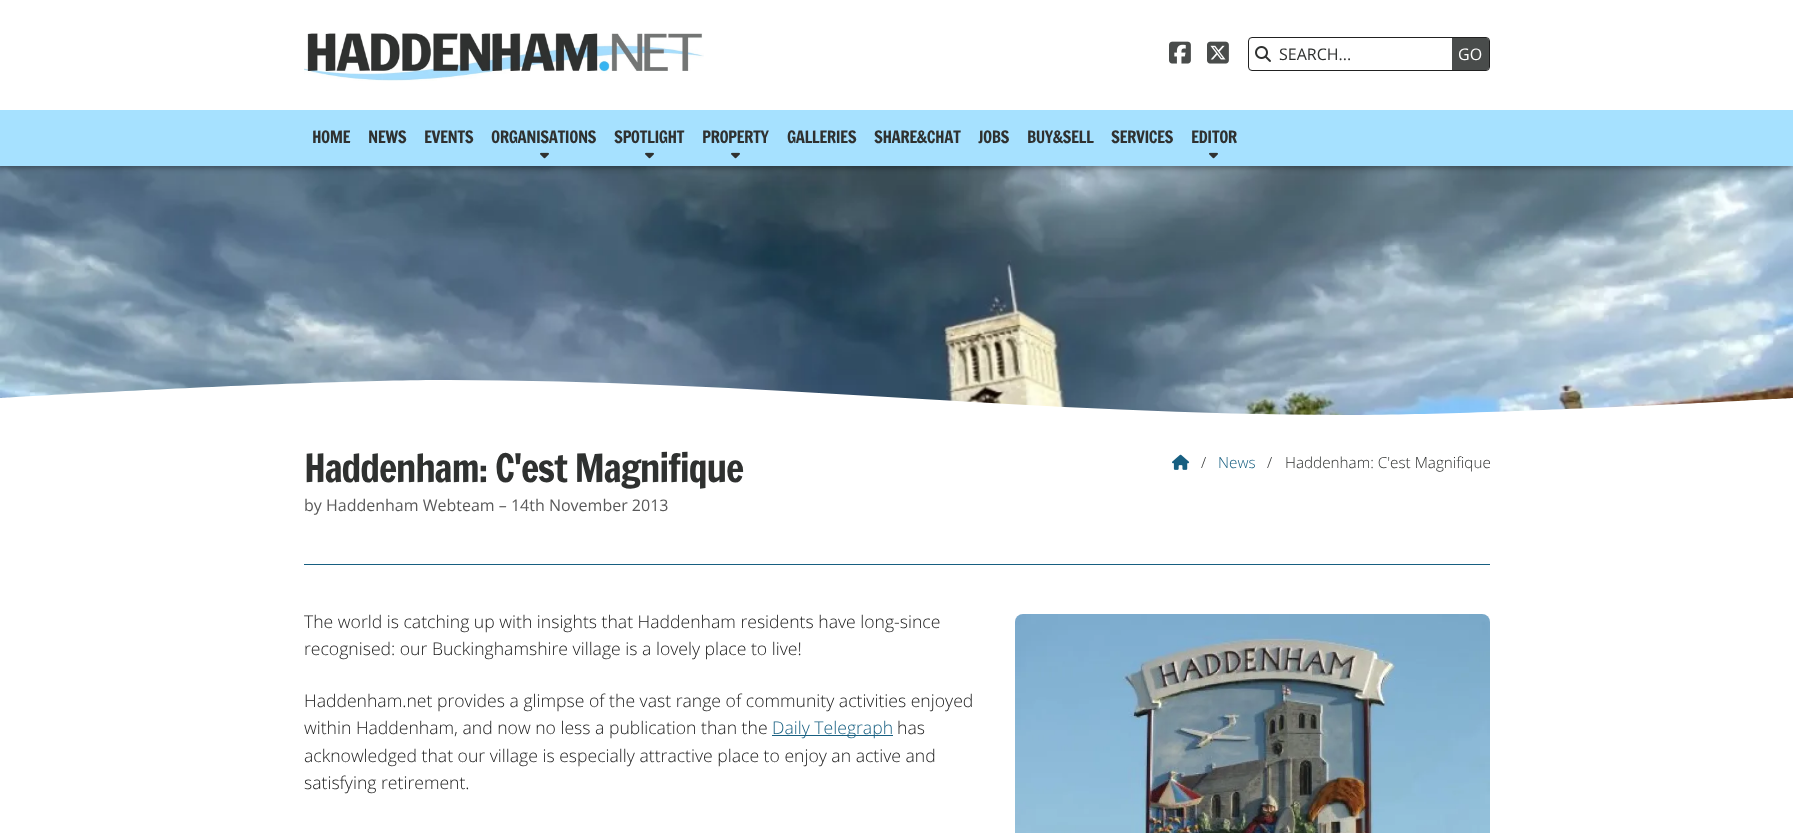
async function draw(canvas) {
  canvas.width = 1793;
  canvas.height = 833;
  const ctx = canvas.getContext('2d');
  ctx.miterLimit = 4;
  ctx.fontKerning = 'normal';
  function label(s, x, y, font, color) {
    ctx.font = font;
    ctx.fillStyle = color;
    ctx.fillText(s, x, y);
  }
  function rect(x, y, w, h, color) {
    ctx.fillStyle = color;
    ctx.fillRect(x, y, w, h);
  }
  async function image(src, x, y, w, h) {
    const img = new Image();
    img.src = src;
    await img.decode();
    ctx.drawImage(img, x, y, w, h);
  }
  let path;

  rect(0, 0, 1793, 833, '#fff');
  await image('assets/img6.png', 0, 166, 1793, 249);
  ctx.fillStyle = '#00000059';
  ctx.filter = 'blur(2.5px)';
  ctx.beginPath();
  ctx.rect(-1, 2, 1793, 166);
  ctx.fill();
  ctx.filter = 'none';
  rect(0, 0, 1793, 110, '#fff');
  await image('assets/img1.png', 304, 33, 400, 48);
  await image('assets/img2.png', 1169, 41, 22, 23);
  await image('assets/img3.png', 1207, 41, 22, 23);
  ctx.beginPath();
  ctx.roundRect(1248.5, 37.5, 241, 33, 3.5);
  ctx.strokeStyle = '#212121';
  ctx.stroke();
  await image('assets/img4.png', 1255, 46, 16, 16);
  label('SEARCH...', 1279, 60, '16px Open Sans', '#2f3130');
  ctx.fillStyle = '#494c4b';
  ctx.beginPath();
  ctx.roundRect(1452, 38, 37, 32, [0, 2.5, 2.5, 0]);
  ctx.fill();
  label('GO', 1458, 60, '16px Open Sans', '#fff');
  rect(0, 110, 1793, 56, '#a6e1ff');
  ctx.letterSpacing = '-0.5px';
  label('HOME', 312, 143, '16.75px Francois One', '#2f3130');
  label('NEWS', 368, 143, '16.75px Francois One', '#2f3130');
  label('EVENTS', 424, 143, '16.75px Francois One', '#2f3130');
  label('ORGANISATIONS', 491, 143, '16.75px Francois One', '#2f3130');
  await image('assets/img5.png', 540, 152, 9, 7);
  label('SPOTLIGHT', 614, 143, '16.75px Francois One', '#2f3130');
  await image('assets/img5.png', 645, 152, 9, 7);
  label('PROPERTY', 702, 143, '16.75px Francois One', '#2f3130');
  await image('assets/img5.png', 731, 152, 9, 7);
  label('GALLERIES', 787, 143, '16.75px Francois One', '#2f3130');
  label('SHARE&CHAT', 874, 143, '16.75px Francois One', '#2f3130');
  label('JOBS', 978, 143, '16.75px Francois One', '#2f3130');
  label('BUY&SELL', 1027, 143, '16.75px Francois One', '#2f3130');
  label('SERVICES', 1111, 143, '16.75px Francois One', '#2f3130');
  label('EDITOR', 1191, 143, '16.75px Francois One', '#2f3130');
  await image('assets/img5.png', 1209, 152, 9, 7);
  ctx.fillStyle = '#fff';
  path = new Path2D('M0 398C0 398 298 380 448 380C748 380 1045 415 1345 415C1495 415 1793 398 1793 398V415H0Z');
  ctx.fill(path);
  rect(304, 564, 1186, 1, '#175f81');
  ctx.letterSpacing = '-1.25px';
  label('Haddenham: C\'est Magnifique', 304, 482, '38.4px Francois One', '#2f3130');
  await image('assets/img7.png', 1172, 454, 18, 16);
  ctx.letterSpacing = '0px';
  label('/', 1201, 468, '300 15.25px Open Sans', '#2f3130');
  label('News', 1218, 468, '300 15.25px Open Sans', '#175f81');
  label('/', 1267, 468, '300 15.25px Open Sans', '#2f3130');
  label('Haddenham: C\'est Magnifique', 1285, 468, '300 15.25px Open Sans', '#2f3130');
  label('by Haddenham Webteam – 14th November 2013', 304, 511, '16px Open Sans', '#595959');
  label('The world is catching up with insights that Haddenham residents have long-since', 304, 628, '300 17.6px Open Sans', '#212121');
  label('recognised: our Buckinghamshire village is a lovely place to live!', 304, 655, '300 17.6px Open Sans', '#212121');
  await image('assets/img8.png', 1015, 614, 475, 219);
  label('Haddenham.net provides a glimpse of the vast range of community activities enjoyed', 304, 707, '300 17.6px Open Sans', '#212121');
  label('within Haddenham, and now no less a publication than the', 304, 734, '300 17.6px Open Sans', '#212121');
  rect(772, 735, 121, 1, '#175f81');
  label('Daily Telegraph', 772, 734, '300 17.6px Open Sans', '#175f81');
  label('has', 897, 734, '300 17.6px Open Sans', '#212121');
  label('acknowledged that our village is especially attractive place to enjoy an active and', 304, 762, '300 17.6px Open Sans', '#212121');
  label('satisfying retirement.', 304, 789, '300 17.6px Open Sans', '#212121');
}

draw(document.querySelector('canvas'));
